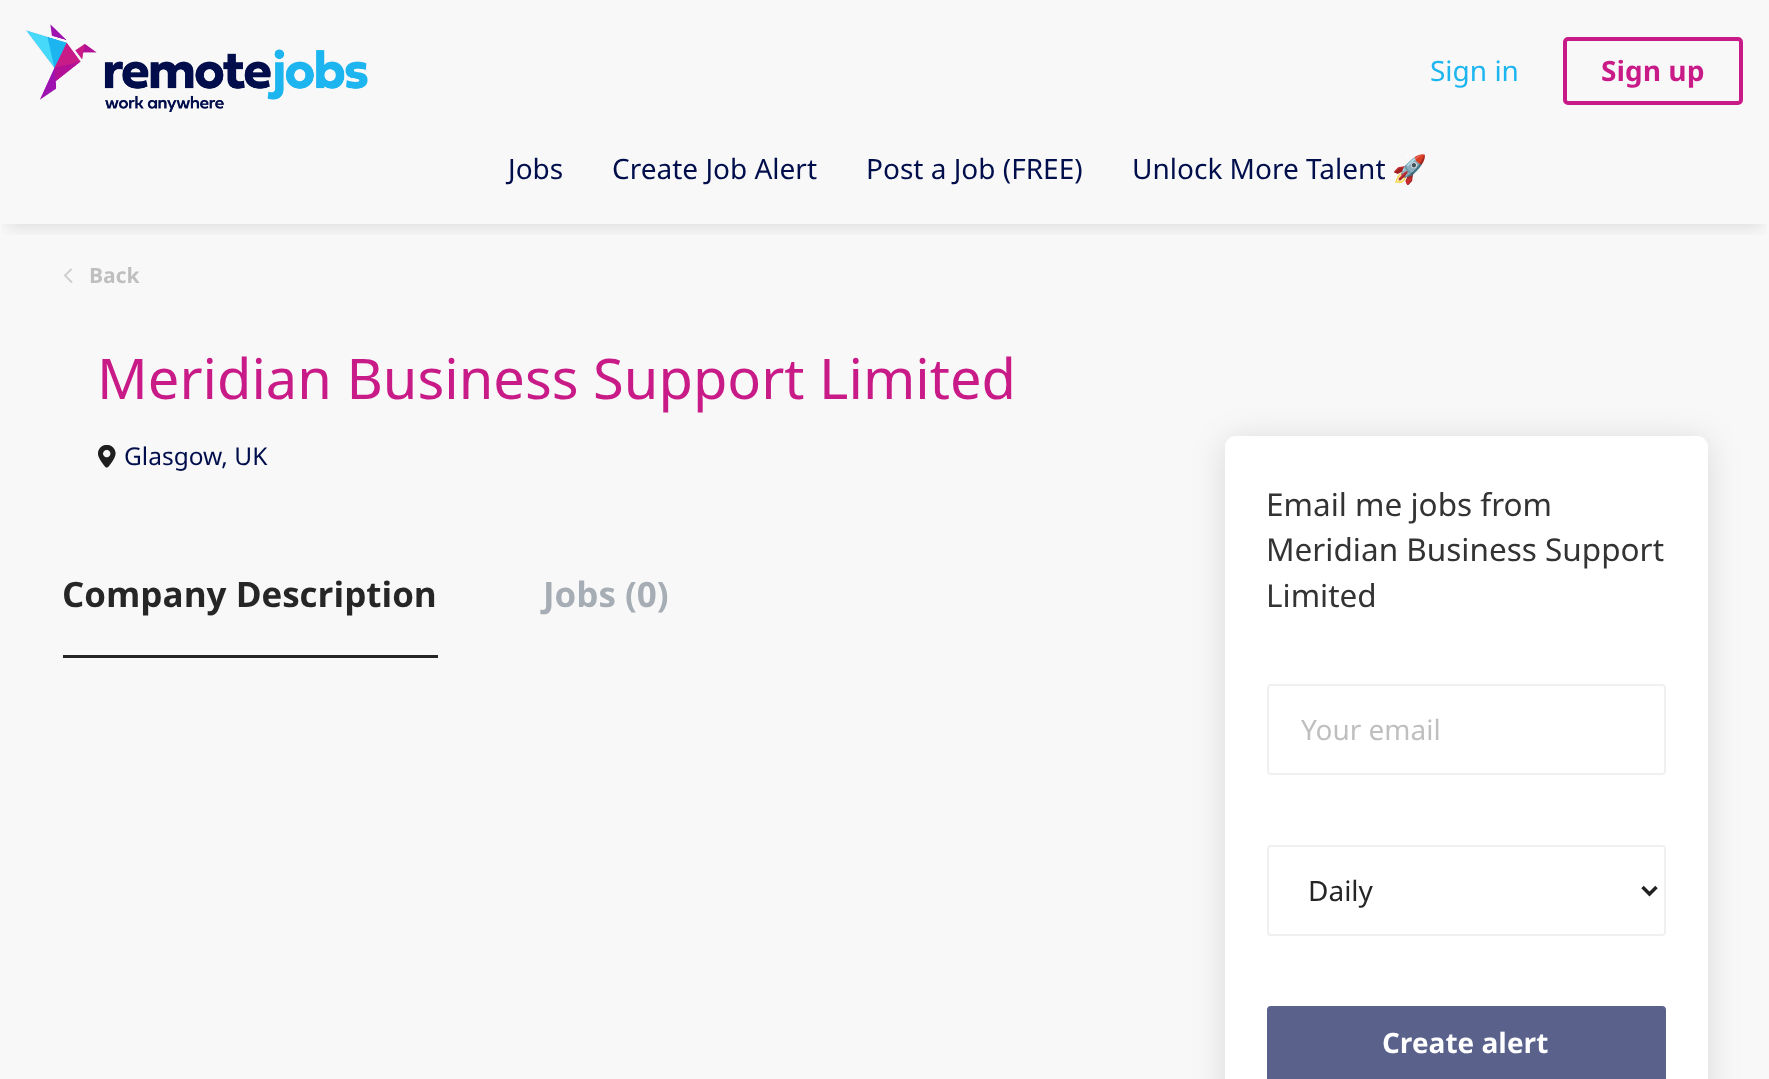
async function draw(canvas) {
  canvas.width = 1769;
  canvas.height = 1079;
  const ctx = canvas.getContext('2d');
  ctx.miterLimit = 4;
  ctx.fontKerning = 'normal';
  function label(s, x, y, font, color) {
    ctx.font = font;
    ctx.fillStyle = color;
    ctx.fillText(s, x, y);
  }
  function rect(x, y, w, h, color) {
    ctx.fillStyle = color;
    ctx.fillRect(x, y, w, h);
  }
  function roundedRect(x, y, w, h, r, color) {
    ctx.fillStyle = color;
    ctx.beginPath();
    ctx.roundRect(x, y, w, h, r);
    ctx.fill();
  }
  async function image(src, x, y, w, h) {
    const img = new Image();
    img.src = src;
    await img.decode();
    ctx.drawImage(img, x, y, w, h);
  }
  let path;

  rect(0, 0, 1769, 1079, '#f8f8f8');
  ctx.save();
  ctx.beginPath();
  ctx.rect(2, 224, 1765, 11);
  ctx.clip();
  ctx.fillStyle = '#0000001f';
  ctx.filter = 'blur(9px)';
  ctx.beginPath();
  ctx.rect(7, 16, 1755, 210);
  ctx.fill();
  ctx.filter = 'none';
  ctx.restore();
  await image('assets/img1.png', 26, 24, 342, 88);
  label('Sign in', 1430, 81, '28px Noto Sans', '#1db5f0');
  ctx.beginPath();
  ctx.roundRect(1565, 39, 176, 64, 3);
  ctx.strokeStyle = '#c91b88';
  ctx.lineWidth = 4;
  ctx.stroke();
  label('Sign up', 1601, 81, 'bold 28px Noto Sans', '#c91b88');
  label('Jobs', 508, 179, '28px Noto Sans', '#010e4c');
  label('Create Job Alert', 612, 179, '28px Noto Sans', '#010e4c');
  label('Post a Job (FREE)', 866, 179, '28px Noto Sans', '#010e4c');
  label('Unlock More Talent', 1132, 179, '28px Noto Sans', '#010e4c');
  label('🚀', 1392, 179, '28px Noto Color Emoji', '#010e4c');
  path = new Path2D('M71 269.5L65 275.5L71.5 282');
  ctx.strokeStyle = '#cfcfcf';
  ctx.lineWidth = 2;
  ctx.lineCap = 'round';
  ctx.lineJoin = 'round';
  ctx.stroke(path);
  label('Back', 89, 283, 'bold 21px Noto Sans', '#bfbfbf');
  label('Meridian Business Support Limited', 97, 399, '56px Noto Sans', '#c91b88');
  await image('assets/img2.png', 98, 445, 18, 23);
  label('Glasgow, UK', 124, 465, '24.5px Noto Sans', '#010e4c');
  rect(63, 655, 375, 3, '#262626');
  label('Company Description', 62, 607, 'bold 35px Noto Sans', '#262626');
  label('Jobs (0)', 543, 607, 'bold 35px Noto Sans', '#a6adb5');
  ctx.fillStyle = '#0000001f';
  ctx.filter = 'blur(16px)';
  ctx.beginPath();
  ctx.roundRect(1225, 439, 483, 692, 11);
  ctx.fill();
  ctx.filter = 'none';
  roundedRect(1225, 436, 483, 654, 11, '#fff');
  label('Email me jobs from', 1266, 516, '31.5px Noto Sans', '#333');
  label('Meridian Business Support', 1266, 561, '31.5px Noto Sans', '#333');
  label('Limited', 1266, 607, '31.5px Noto Sans', '#333');
  ctx.beginPath();
  ctx.roundRect(1268, 685, 397, 89, 3);
  ctx.strokeStyle = '#f0f0f0';
  ctx.lineJoin = 'miter';
  ctx.stroke();
  label('Your email', 1301, 740, '28px Noto Sans', '#bfbfbf');
  ctx.beginPath();
  ctx.roundRect(1268, 846, 397, 89, 3);
  ctx.stroke();
  path = new Path2D('M1642.5 887L1649.5 894L1656.5 887');
  ctx.strokeStyle = '#222';
  ctx.lineWidth = 3.5;
  ctx.lineCap = 'butt';
  ctx.stroke(path);
  label('Daily', 1308, 901, '28px Noto Sans', '#262626');
  ctx.fillStyle = '#5a628c';
  ctx.beginPath();
  ctx.roundRect(1268, 1007, 397, 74, 3);
  ctx.fill();
  ctx.strokeStyle = '#5a628c';
  ctx.lineWidth = 2;
  ctx.stroke();
  label('Create alert', 1382, 1053, 'bold 28px Noto Sans', '#fff');
}

draw(document.querySelector('canvas'));
